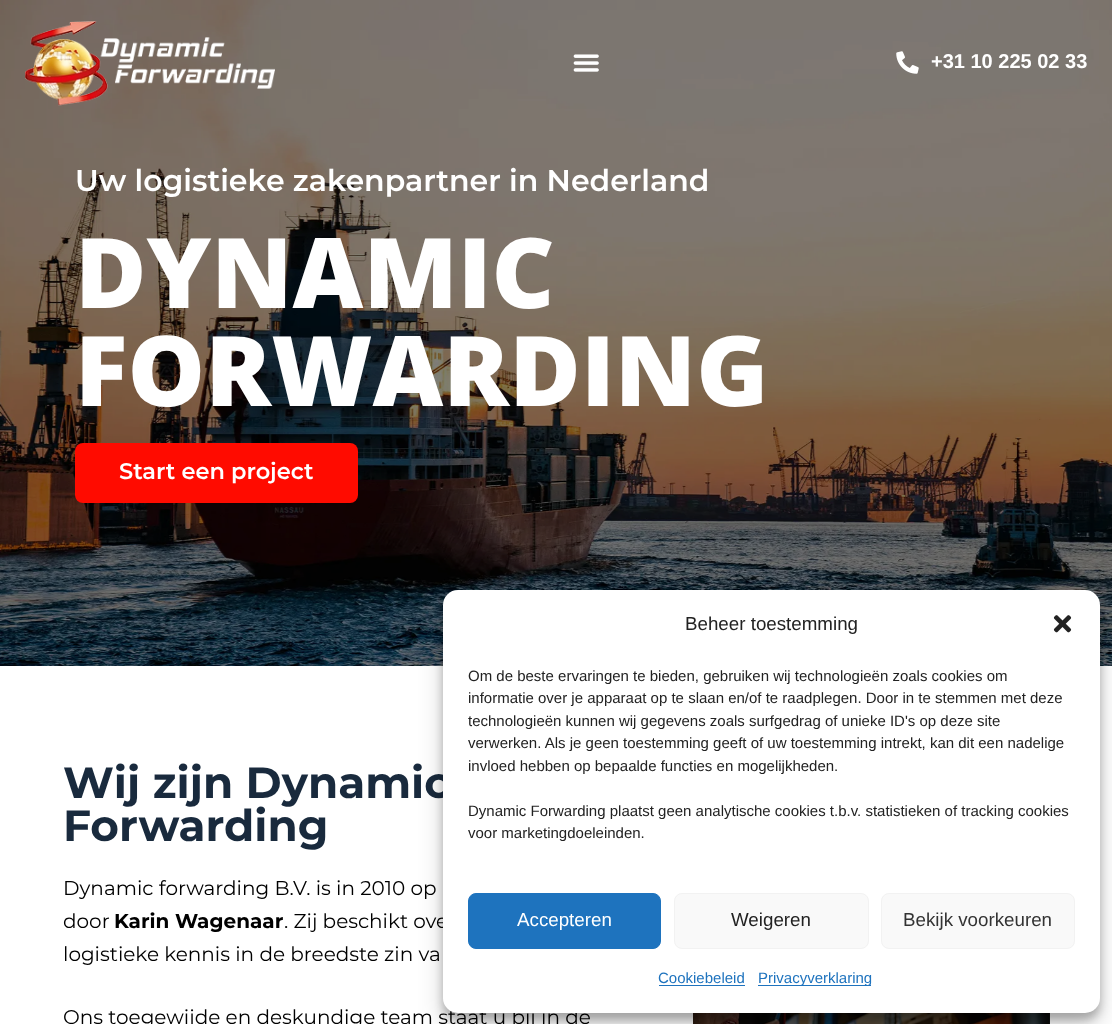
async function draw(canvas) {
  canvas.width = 1112;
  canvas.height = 1024;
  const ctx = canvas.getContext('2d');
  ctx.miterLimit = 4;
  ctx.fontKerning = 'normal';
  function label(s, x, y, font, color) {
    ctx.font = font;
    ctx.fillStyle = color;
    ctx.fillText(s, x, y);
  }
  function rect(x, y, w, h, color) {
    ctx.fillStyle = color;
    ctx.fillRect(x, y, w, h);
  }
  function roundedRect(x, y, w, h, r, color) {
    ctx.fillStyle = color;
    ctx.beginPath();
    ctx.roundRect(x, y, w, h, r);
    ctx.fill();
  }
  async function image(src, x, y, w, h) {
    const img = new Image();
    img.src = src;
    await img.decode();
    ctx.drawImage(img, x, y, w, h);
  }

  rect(0, 0, 1112, 1024, '#fff');
  await image('assets/img4.png', 0, 0, 1112, 666);
  await image('assets/img1.png', 25, 21, 250, 85);
  await image('assets/img2.png', 573, 54, 26, 18);
  await image('assets/img3.png', 896, 51, 23, 23);
  label('+31 10 225 02 33', 931, 68, 'bold 20px Liberation Sans', '#fff');
  label('Uw logistieke zakenpartner in Nederland', 75, 191, '600 30px Montserrat', '#fff');
  label('DYNAMIC', 75, 308, '800 97.5px Open Sans', '#fff');
  label('FORWARDING', 75, 406, '800 97.5px Open Sans', '#fff');
  roundedRect(75, 443, 283, 60, 8, '#ff0b00');
  label('Start een project', 119, 479, '600 22.5px Montserrat', '#fff');
  label('Wij zijn Dynamic', 63, 798, 'bold 43.75px Montserrat', '#192a3d');
  label('Forwarding', 63, 841, 'bold 43.75px Montserrat', '#192a3d');
  label('Dynamic forwarding B.V. is in 2010 op', 63, 895, '20px Montserrat', '#000');
  label('door', 63, 928, '20px Montserrat', '#000');
  label('Karin Wagenaar', 114, 928, 'bold 20px Montserrat', '#000');
  label('. Zij beschikt ove', 284, 928, '20px Montserrat', '#000');
  label('logistieke kennis in de breedste zin va', 63, 961, '20px Montserrat', '#000');
  label('Ons toegewijde en deskundige team staat u bij in de', 63, 1024, '20px Montserrat', '#000');
  await image('assets/img5.png', 693, 1013, 357, 11);
  ctx.fillStyle = '#0000003b';
  ctx.filter = 'blur(4px)';
  ctx.beginPath();
  ctx.roundRect(443, 598, 657, 422, 15);
  ctx.fill();
  ctx.filter = 'none';
  ctx.fillStyle = '#00000030';
  ctx.filter = 'blur(12.5px)';
  ctx.beginPath();
  ctx.roundRect(443, 603, 657, 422, 15);
  ctx.fill();
  ctx.filter = 'none';
  roundedRect(443, 590, 657, 423, 15, '#fff');
  label('Beheer toestemming', 685, 630, '18.75px Liberation Sans', '#222');
  await image('assets/img6.png', 1053, 615, 19, 18);
  label('Om de beste ervaringen te bieden, gebruiken wij technologieën zoals cookies om', 468, 681, '15px Liberation Sans', '#222');
  label('informatie over je apparaat op te slaan en/of te raadplegen. Door in te stemmen met deze', 468, 703, '15px Liberation Sans', '#222');
  label('technologieën kunnen wij gegevens zoals surfgedrag of unieke ID\'s op deze site', 468, 726, '15px Liberation Sans', '#222');
  label('verwerken. Als je geen toestemming geeft of uw toestemming intrekt, kan dit een nadelige', 468, 748, '15px Liberation Sans', '#222');
  label('invloed hebben op bepaalde functies en mogelijkheden.', 468, 771, '15px Liberation Sans', '#222');
  label('Dynamic Forwarding plaatst geen analytische cookies t.b.v. statistieken of tracking cookies', 468, 816, '15px Liberation Sans', '#222');
  label('voor marketingdoeleinden.', 468, 838, '15px Liberation Sans', '#222');
  ctx.fillStyle = '#1e73be';
  ctx.beginPath();
  ctx.roundRect(468.5, 893.5, 192, 55, 7.5);
  ctx.fill();
  ctx.strokeStyle = '#1e73be';
  ctx.stroke();
  label('Accepteren', 517, 926, '18.75px Liberation Sans', '#fff');
  ctx.fillStyle = '#f9f9f9';
  ctx.beginPath();
  ctx.roundRect(674.5, 893.5, 194, 55, 7.5);
  ctx.fill();
  ctx.strokeStyle = '#f2f2f2';
  ctx.stroke();
  label('Weigeren', 731, 926, '18.75px Liberation Sans', '#222');
  ctx.fillStyle = '#f9f9f9';
  ctx.beginPath();
  ctx.roundRect(881.5, 893.5, 193, 55, 7.5);
  ctx.fill();
  ctx.stroke();
  label('Bekijk voorkeuren', 903, 926, '18.75px Liberation Sans', '#333');
  label('Cookiebeleid', 658, 983, '15px Liberation Sans', '#1e73be');
  rect(659, 985, 86, 1, '#1e73be');
  rect(758, 985, 113, 1, '#1e73be');
  label('Privacyverklaring', 758, 983, '15px Liberation Sans', '#1e73be');
}

draw(document.querySelector('canvas'));
